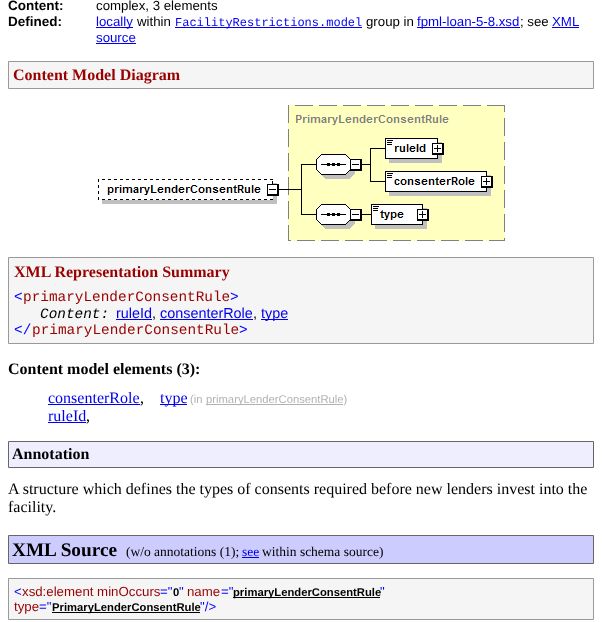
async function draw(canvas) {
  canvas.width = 602;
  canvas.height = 622;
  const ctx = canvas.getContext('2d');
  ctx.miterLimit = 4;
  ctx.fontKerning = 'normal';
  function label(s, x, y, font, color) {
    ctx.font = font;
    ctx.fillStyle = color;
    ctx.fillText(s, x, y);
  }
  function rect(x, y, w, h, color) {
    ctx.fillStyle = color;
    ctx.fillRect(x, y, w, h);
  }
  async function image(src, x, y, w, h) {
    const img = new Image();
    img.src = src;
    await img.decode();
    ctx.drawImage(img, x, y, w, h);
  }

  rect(0, 0, 602, 622, '#fff');
  label('Content:', 8, 10, 'bold 13.5px Liberation Sans', '#000');
  label('complex, 3 elements', 96, 10, '13.25px Liberation Sans', '#000');
  label('Defined:', 8, 26, 'bold 13.5px Liberation Sans', '#000');
  rect(96, 27, 37, 1, '#00e');
  label('locally', 96, 26, '13.25px Liberation Sans', '#00e');
  label('within', 137, 26, '13.25px Liberation Sans', '#000');
  rect(175, 27, 187, 1, '#00e');
  label('FacilityRestrictions.model', 175, 26, '12px Liberation Mono', '#00e');
  label('group in', 366, 26, '13.25px Liberation Sans', '#000');
  rect(417, 27, 103, 1, '#00e');
  label('fpml-loan-5-8.xsd', 417, 26, '13.25px Liberation Sans', '#00e');
  label('; see', 520, 26, '13.25px Liberation Sans', '#000');
  rect(552, 27, 27, 1, '#00e');
  label('XML', 552, 26, '13.25px Liberation Sans', '#00e');
  label('source', 96, 42, '13.25px Liberation Sans', '#00e');
  rect(96, 43, 40, 1, '#00e');
  ctx.fillStyle = '#f5f5f5';
  ctx.beginPath();
  ctx.rect(8.5, 61.5, 585, 27);
  ctx.fill();
  ctx.strokeStyle = '#999';
  ctx.stroke();
  label('Content Model Diagram', 13, 80, 'bold 16px Liberation Serif', '#900');
  await image('assets/img1.png', 98, 105, 407, 136);
  ctx.fillStyle = '#f5f5f5';
  ctx.beginPath();
  ctx.rect(8.5, 257.5, 585, 86);
  ctx.fill();
  ctx.stroke();
  label('XML Representation Summary', 14, 277, 'bold 16px Liberation Serif', '#900');
  label('<', 14, 301, '14.4px Liberation Mono', '#00f');
  label('primaryLenderConsentRule', 23, 301, '14.4px Liberation Mono', '#900');
  label('>', 230, 301, '14.4px Liberation Mono', '#00f');
  label('Content:', 40, 318, 'italic 14.4px Liberation Mono', '#000');
  label('ruleId', 116, 318, '14.4px Liberation Sans', '#00e');
  label(',', 152, 318, '14.4px Liberation Sans', '#000');
  rect(116, 319, 36, 1, '#00e');
  label('consenterRole', 160, 318, '14.4px Liberation Sans', '#00e');
  label(',', 253, 318, '14.4px Liberation Sans', '#000');
  rect(160, 319, 93, 1, '#00e');
  rect(261, 319, 27, 1, '#00e');
  label('type', 261, 318, '14.4px Liberation Sans', '#00e');
  label('<\/', 14, 334, '14.4px Liberation Mono', '#00f');
  label('primaryLenderConsentRule', 32, 334, '14.4px Liberation Mono', '#900');
  label('>', 239, 334, '14.4px Liberation Mono', '#00f');
  label('Content model elements (3):', 8, 374, 'bold 16px Liberation Serif', '#000');
  label('consenterRole', 48, 403, '16px Liberation Serif', '#00e');
  rect(48, 404, 92, 1, '#00e');
  label(',', 140, 403, '16px Liberation Serif', '#000');
  label('ruleId', 48, 421, '16px Liberation Serif', '#00e');
  rect(48, 422, 38, 1, '#00e');
  label(',', 86, 421, '16px Liberation Serif', '#000');
  rect(160, 404, 27, 1, '#00e');
  label('type', 160, 403, '16px Liberation Serif', '#00e');
  label('(in', 190, 403, '11.25px Liberation Sans', '#b2b2b2');
  rect(206, 404, 137, 1, '#b2b2b2');
  label('primaryLenderConsentRule)', 206, 403, '11.25px Liberation Sans', '#b2b2b2');
  ctx.fillStyle = '#eef';
  ctx.beginPath();
  ctx.rect(8.5, 441.5, 585, 26);
  ctx.fill();
  ctx.strokeStyle = '#666';
  ctx.stroke();
  label('Annotation', 12, 459, 'bold 16px Liberation Serif', '#000');
  label('A structure which defines the types of consents required before new lenders invest into the', 8, 494, '16px Liberation Serif', '#000');
  label('facility.', 8, 512, '16px Liberation Serif', '#000');
  ctx.fillStyle = '#ccf';
  ctx.beginPath();
  ctx.rect(8.5, 535.5, 585, 28);
  ctx.fill();
  ctx.stroke();
  label('XML Source', 12, 556, 'bold 19.25px Liberation Serif', '#000');
  label('(w/o annotations (1);', 126, 556, '13.5px Liberation Serif', '#000');
  label('see', 242, 556, '13.5px Liberation Serif', '#00e');
  rect(242, 557, 17, 1, '#00e');
  label('within schema source)', 262, 556, '13.5px Liberation Serif', '#000');
  ctx.fillStyle = '#f5f5f5';
  ctx.beginPath();
  ctx.rect(8.5, 578.5, 585, 41);
  ctx.fill();
  ctx.strokeStyle = '#999';
  ctx.stroke();
  label('<', 14, 596, '13.25px Liberation Sans', '#00f');
  label('xsd:element minOccurs', 22, 596, '13.25px Liberation Sans', '#900');
  label('="', 160, 596, '13.25px Liberation Sans', '#00f');
  label('0', 173, 596, 'bold 11.25px Liberation Sans', '#000');
  label('"', 179, 596, '13.25px Liberation Sans', '#00f');
  label('name', 187, 596, '13.25px Liberation Sans', '#900');
  label('="', 221, 596, '13.25px Liberation Sans', '#00f');
  rect(233, 597, 147, 1, '#000');
  label('primaryLenderConsentRule', 233, 596, 'bold 11.25px Liberation Sans', '#000');
  label('"', 380, 596, '13.25px Liberation Sans', '#00f');
  label('type', 14, 611, '13.25px Liberation Sans', '#900');
  label('="', 39, 611, '13.25px Liberation Sans', '#00f');
  rect(52, 612, 148, 1, '#000');
  label('PrimaryLenderConsentRule', 52, 611, 'bold 11.25px Liberation Sans', '#000');
  label('"/>', 200, 611, '13.25px Liberation Sans', '#00f');
}

draw(document.querySelector('canvas'));
